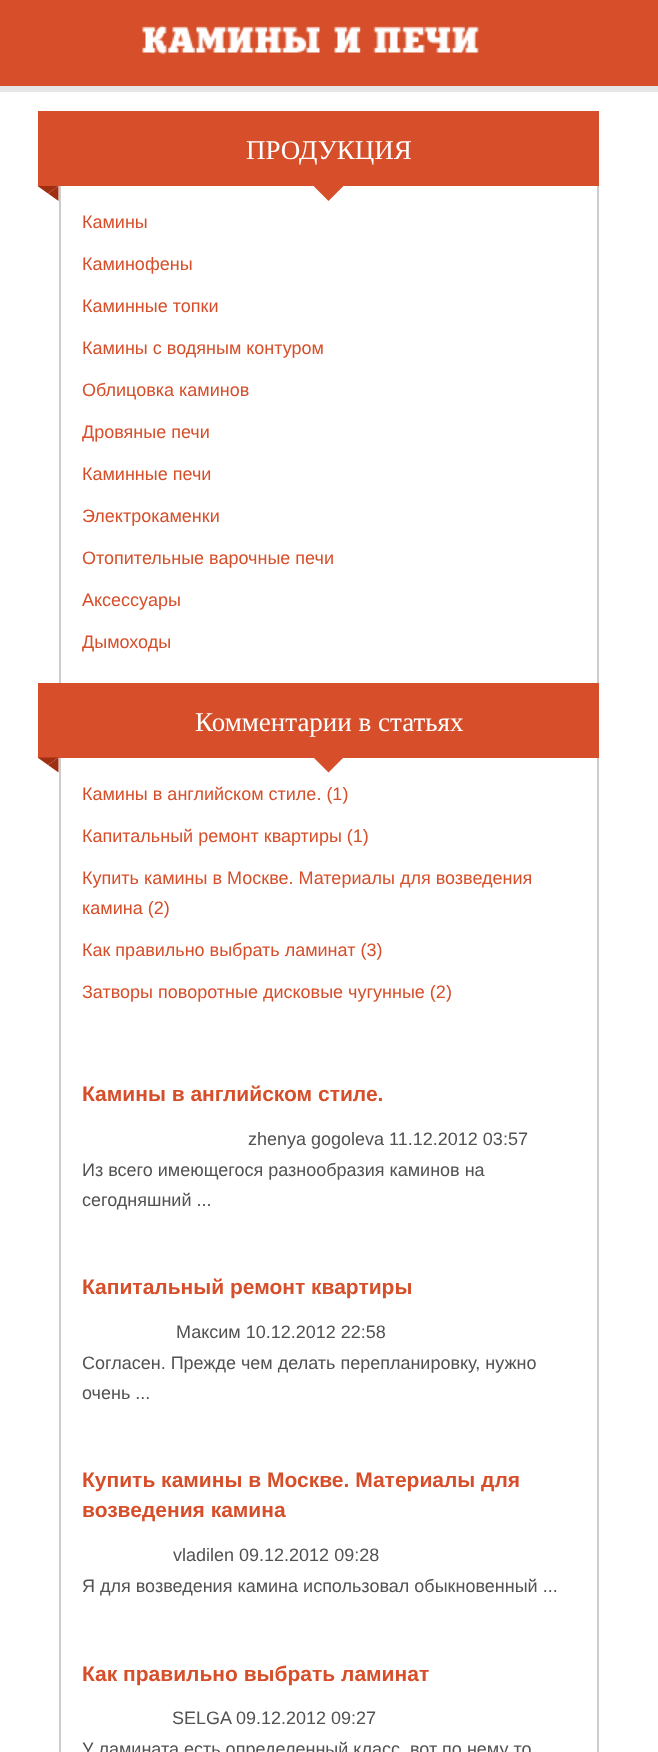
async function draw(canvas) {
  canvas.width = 658;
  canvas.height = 1752;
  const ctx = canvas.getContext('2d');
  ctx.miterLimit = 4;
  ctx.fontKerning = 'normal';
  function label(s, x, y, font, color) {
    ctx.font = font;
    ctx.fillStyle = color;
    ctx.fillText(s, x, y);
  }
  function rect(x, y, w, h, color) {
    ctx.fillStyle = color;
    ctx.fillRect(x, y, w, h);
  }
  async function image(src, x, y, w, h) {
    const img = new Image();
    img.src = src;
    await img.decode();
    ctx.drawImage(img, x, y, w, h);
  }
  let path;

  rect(0, 0, 658, 1752, '#fff');
  ctx.fillStyle = '#e6e6e6';
  path = new Path2D('M-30 86V92H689V6H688V86Z');
  ctx.fill(path);
  rect(0, 0, 658, 86, '#d64f2a');
  await image('assets/img1.png', 142, 25, 337, 30);
  rect(597, 186, 2, 500, '#ccc');
  rect(59, 186, 2, 500, '#ccc');
  rect(38, 111, 561, 75, '#d64f2a');
  label('ПРОДУКЦИЯ', 246, 159, '27px Liberation Serif', '#fff');
  ctx.fillStyle = '#d64f2a';
  path = new Path2D('M313.5 186H343.5L328.5 201Z');
  ctx.fill(path);
  ctx.fillStyle = '#9f2f10';
  path = new Path2D('M37.5 186H58.5L48 193.5Z');
  ctx.fill(path);
  path = new Path2D('M58.5 186V201L48 193.5Z');
  ctx.fill(path);
  label('Камины', 82, 228, '18px Liberation Sans', '#d64f2a');
  label('Каминофены', 82, 270, '18px Liberation Sans', '#d64f2a');
  label('Каминные топки', 82, 312, '18px Liberation Sans', '#d64f2a');
  label('Камины с водяным контуром', 82, 354, '18px Liberation Sans', '#d64f2a');
  label('Облицовка каминов', 82, 396, '18px Liberation Sans', '#d64f2a');
  label('Дровяные печи', 82, 438, '18px Liberation Sans', '#d64f2a');
  label('Каминные печи', 82, 480, '18px Liberation Sans', '#d64f2a');
  label('Электрокаменки', 82, 522, '18px Liberation Sans', '#d64f2a');
  label('Отопительные варочные печи', 82, 564, '18px Liberation Sans', '#d64f2a');
  label('Аксессуары', 82, 606, '18px Liberation Sans', '#d64f2a');
  label('Дымоходы', 82, 648, '18px Liberation Sans', '#d64f2a');
  rect(597, 758, 2, 994, '#ccc');
  rect(59, 758, 2, 994, '#ccc');
  rect(38, 683, 561, 75, '#d64f2a');
  label('Комментарии в статьях', 195, 731, '27px Liberation Serif', '#fff');
  ctx.fillStyle = '#d64f2a';
  path = new Path2D('M313.5 757.5H343.5L328.5 772.5Z');
  ctx.fill(path);
  ctx.fillStyle = '#9f2f10';
  path = new Path2D('M37.5 757.5H58.5L48 765Z');
  ctx.fill(path);
  path = new Path2D('M58.5 757.5V772.5L48 765Z');
  ctx.fill(path);
  label('Камины в английском стиле. (1)', 82, 800, '18px Liberation Sans', '#d64f2a');
  label('Капитальный ремонт квартиры (1)', 82, 842, '18px Liberation Sans', '#d64f2a');
  label('Купить камины в Москве. Материалы для возведения', 82, 884, '18px Liberation Sans', '#d64f2a');
  label('камина (2)', 82, 914, '18px Liberation Sans', '#d64f2a');
  label('Как правильно выбрать ламинат (3)', 82, 956, '18px Liberation Sans', '#d64f2a');
  label('Затворы поворотные дисковые чугунные (2)', 82, 998, '18px Liberation Sans', '#d64f2a');
  label('Камины в английском стиле.', 82, 1101, 'bold 21px Liberation Sans', '#d64f2a');
  label('zhenya gogoleva 11.12.2012 03:57', 248, 1145, '18px Liberation Sans', '#525253');
  label('Из всего имеющегося разнообразия каминов на', 82, 1176, '18px Liberation Sans', '#525253');
  label('сегодняшний ...', 82, 1206, '18px Liberation Sans', '#525253');
  label('Капитальный ремонт квартиры', 82, 1294, 'bold 21px Liberation Sans', '#d64f2a');
  label('Максим 10.12.2012 22:58', 176, 1338, '18px Liberation Sans', '#525253');
  label('Согласен. Прежде чем делать перепланировку, нужно', 82, 1369, '18px Liberation Sans', '#525253');
  label('очень ...', 82, 1399, '18px Liberation Sans', '#525253');
  label('Купить камины в Москве. Материалы для', 82, 1487, 'bold 21px Liberation Sans', '#d64f2a');
  label('возведения камина', 82, 1517, 'bold 21px Liberation Sans', '#d64f2a');
  label('vladilen 09.12.2012 09:28', 173, 1561, '18px Liberation Sans', '#525253');
  label('Я для возведения камина использовал обыкновенный ...', 82, 1592, '18px Liberation Sans', '#525253');
  label('Как правильно выбрать ламинат', 82, 1681, 'bold 21px Liberation Sans', '#d64f2a');
  label('SELGA', 172, 1724, '18px Liberation Sans', '#525253');
  label('09.12.2012 09:27', 236, 1724, '18px Liberation Sans', '#525253');
  label('У ламината есть определенный класс, вот по нему то', 82, 1755, '18px Liberation Sans', '#525253');
}

draw(document.querySelector('canvas'));
